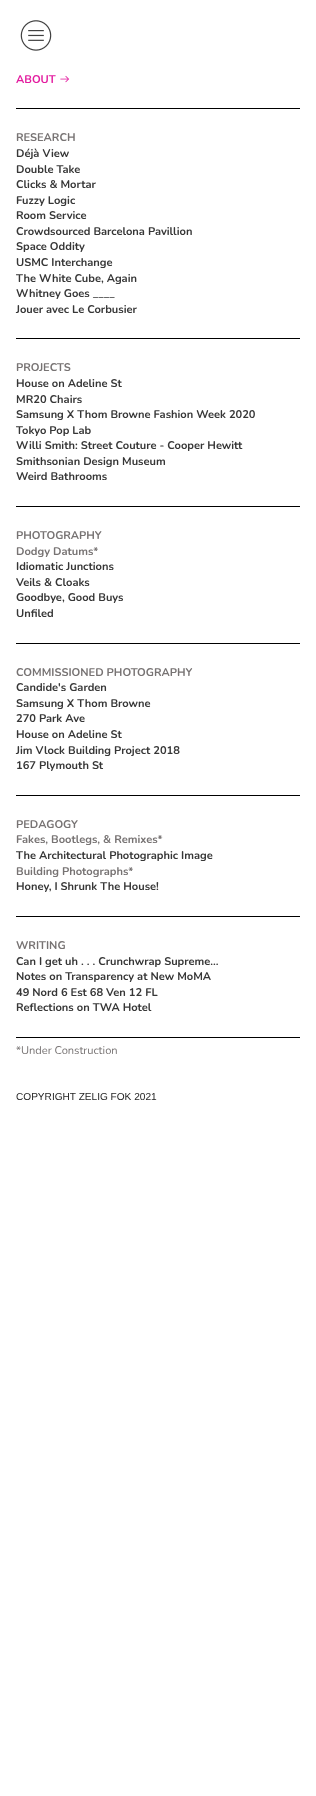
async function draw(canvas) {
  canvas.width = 316;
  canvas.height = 1796;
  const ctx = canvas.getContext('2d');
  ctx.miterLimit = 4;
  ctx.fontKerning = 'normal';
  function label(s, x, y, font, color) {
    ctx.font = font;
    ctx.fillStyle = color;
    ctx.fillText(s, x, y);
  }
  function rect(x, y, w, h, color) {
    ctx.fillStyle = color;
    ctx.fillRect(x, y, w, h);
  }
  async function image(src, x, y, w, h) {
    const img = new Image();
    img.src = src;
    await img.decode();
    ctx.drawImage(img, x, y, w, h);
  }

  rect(0, 0, 316, 1796, '#fff');
  await image('assets/img1.png', 20, 20, 32, 31);
  label('ABOUT', 16, 83, 'bold 11.1px Nunito', '#e31c9f');
  await image('assets/img2.png', 60, 75, 10, 8);
  rect(16, 108, 284, 1, '#000');
  label('RESEARCH', 16, 141, 'bold 11.1px Nunito', '#777373');
  label('Déjà View', 16, 157, 'bold 11.1px Nunito', '#373737');
  label('Double Take', 16, 173, 'bold 11.1px Nunito', '#373737');
  label('Clicks & Mortar', 16, 188, 'bold 11.1px Nunito', '#373737');
  label('Fuzzy Logic', 16, 204, 'bold 11.1px Nunito', '#373737');
  label('Room Service', 16, 219, 'bold 11.1px Nunito', '#373737');
  label('Crowdsourced Barcelona Pavillion', 16, 235, 'bold 11.1px Nunito', '#373737');
  label('Space Oddity', 16, 250, 'bold 11.1px Nunito', '#373737');
  label('USMC Interchange', 16, 266, 'bold 11.1px Nunito', '#373737');
  label('The White Cube, Again', 16, 282, 'bold 11.1px Nunito', '#373737');
  label('Whitney Goes ____', 16, 297, 'bold 11.1px Nunito', '#373737');
  label('Jouer avec Le Corbusier', 16, 313, 'bold 11.1px Nunito', '#373737');
  rect(16, 338, 284, 1, '#000');
  label('PROJECTS', 16, 371, 'bold 11.1px Nunito', '#777373');
  label('House on Adeline St', 16, 387, 'bold 11.1px Nunito', '#373737');
  label('MR20 Chairs', 16, 403, 'bold 11.1px Nunito', '#373737');
  label('Samsung X Thom Browne Fashion Week 2020', 16, 418, 'bold 11.1px Nunito', '#373737');
  label('Tokyo Pop Lab', 16, 434, 'bold 11.1px Nunito', '#373737');
  label('Willi Smith: Street Couture - Cooper Hewitt', 16, 449, 'bold 11.1px Nunito', '#373737');
  label('Smithsonian Design Museum', 16, 465, 'bold 11.1px Nunito', '#373737');
  label('Weird Bathrooms', 16, 480, 'bold 11.1px Nunito', '#373737');
  rect(16, 506, 284, 1, '#000');
  label('PHOTOGRAPHY', 16, 539, 'bold 11.1px Nunito', '#777373');
  label('Dodgy Datums*', 16, 555, 'bold 11.1px Nunito', '#777373');
  label('Idiomatic Junctions', 16, 570, 'bold 11.1px Nunito', '#373737');
  label('Veils & Cloaks', 16, 586, 'bold 11.1px Nunito', '#373737');
  label('Goodbye, Good Buys', 16, 601, 'bold 11.1px Nunito', '#373737');
  label('Unfiled', 16, 617, 'bold 11.1px Nunito', '#373737');
  rect(16, 643, 284, 1, '#000');
  label('COMMISSIONED PHOTOGRAPHY', 16, 676, 'bold 11.1px Nunito', '#777373');
  label('Candide\'s Garden', 16, 691, 'bold 11.1px Nunito', '#373737');
  label('Samsung X Thom Browne', 16, 707, 'bold 11.1px Nunito', '#373737');
  label('270 Park Ave', 16, 722, 'bold 11.1px Nunito', '#373737');
  label('House on Adeline St', 16, 738, 'bold 11.1px Nunito', '#373737');
  label('Jim Vlock Building Project 2018', 16, 754, 'bold 11.1px Nunito', '#373737');
  label('167 Plymouth St', 16, 769, 'bold 11.1px Nunito', '#373737');
  rect(16, 795, 284, 1, '#000');
  label('PEDAGOGY', 16, 828, 'bold 11.1px Nunito', '#777373');
  label('Fakes, Bootlegs, & Remixes*', 16, 843, 'bold 11.1px Nunito', '#777373');
  label('The Architectural Photographic Image', 16, 859, 'bold 11.1px Nunito', '#373737');
  label('Building Photographs*', 16, 875, 'bold 11.1px Nunito', '#777373');
  label('Honey, I Shrunk The House!', 16, 890, 'bold 11.1px Nunito', '#373737');
  rect(16, 916, 284, 1, '#000');
  label('WRITING', 16, 949, 'bold 11.1px Nunito', '#777373');
  label('Can I get uh . . . Crunchwrap Supreme...', 16, 965, 'bold 11.1px Nunito', '#373737');
  label('Notes on Transparency at New MoMA', 16, 980, 'bold 11.1px Nunito', '#373737');
  label('49 Nord 6 Est 68 Ven 12 FL', 16, 996, 'bold 11.1px Nunito', '#373737');
  label('Reflections on TWA Hotel', 16, 1011, 'bold 11.1px Nunito', '#373737');
  rect(16, 1037, 284, 1, '#000');
  label('*Under Construction', 16, 1054, '11.1px Nunito', '#777373');
  label('COPYRIGHT ZELIG FOK 2021', 16, 1100, '10.1px Liberation Sans', '#262626');
}

draw(document.querySelector('canvas'));
